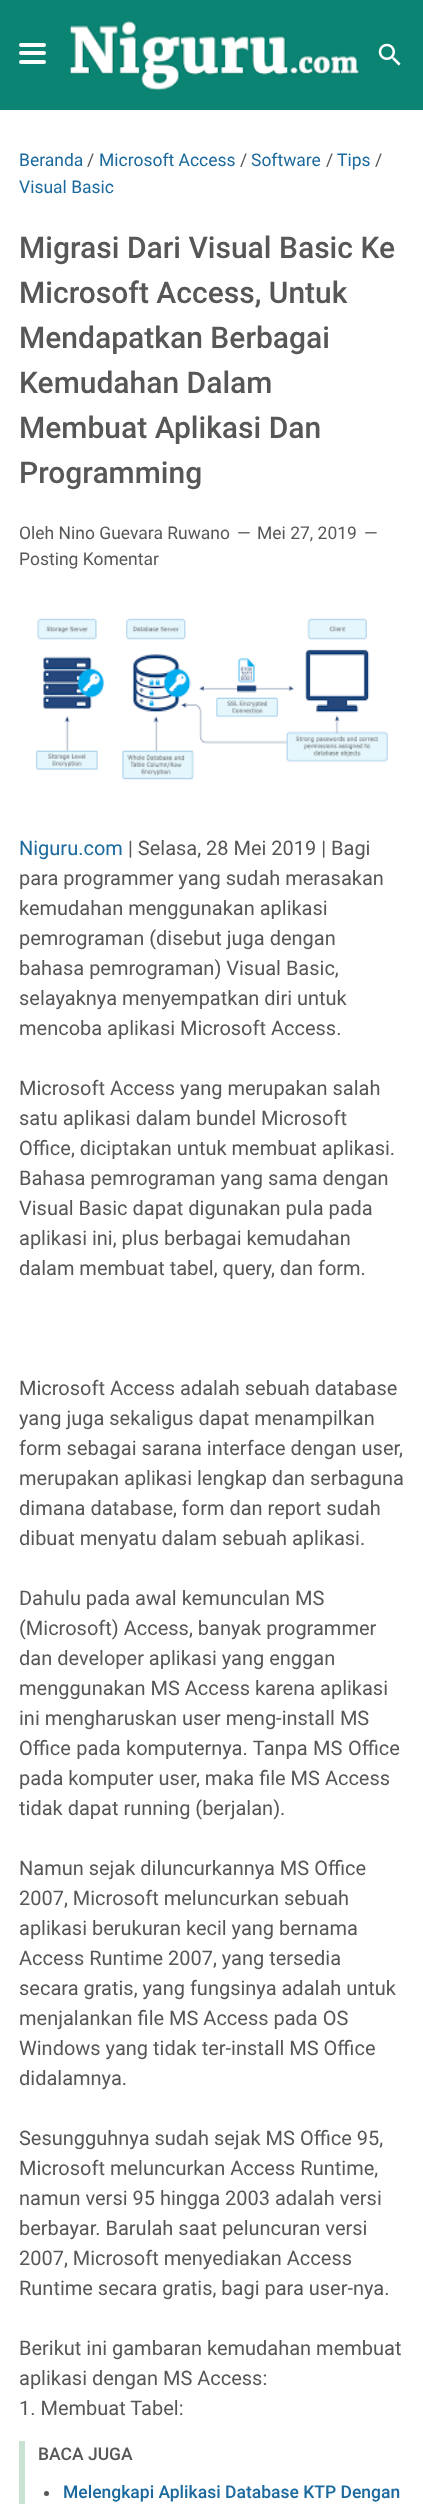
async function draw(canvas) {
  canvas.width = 423;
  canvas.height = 2504;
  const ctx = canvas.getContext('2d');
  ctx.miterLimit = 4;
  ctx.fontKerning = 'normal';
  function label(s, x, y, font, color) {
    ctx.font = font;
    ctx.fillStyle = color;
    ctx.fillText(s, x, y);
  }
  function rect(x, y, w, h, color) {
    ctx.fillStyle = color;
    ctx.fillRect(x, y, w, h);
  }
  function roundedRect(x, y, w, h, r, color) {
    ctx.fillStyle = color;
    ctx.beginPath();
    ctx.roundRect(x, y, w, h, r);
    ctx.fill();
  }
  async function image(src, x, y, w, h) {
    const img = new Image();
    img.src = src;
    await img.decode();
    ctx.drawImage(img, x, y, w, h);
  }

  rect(0, 0, 423, 2504, '#fff');
  rect(0, 0, 423, 110, '#0b8474');
  roundedRect(19, 43, 27, 4, 2, '#fff');
  roundedRect(19, 51, 27, 4, 2, '#fff');
  roundedRect(19, 60, 27, 4, 2, '#fff');
  await image('assets/img1.png', 68, 20, 292, 71);
  await image('assets/img2.png', 378, 43, 23, 23);
  label('Beranda', 19, 166, '17.5px Roboto', '#1b699d');
  label('/', 87, 166, '17.5px Roboto', '#575757');
  label('Microsoft Access', 99, 166, '17.5px Roboto', '#1b699d');
  label('/', 240, 166, '17.5px Roboto', '#575757');
  label('Software', 251, 166, '17.5px Roboto', '#1b699d');
  label('/', 326, 166, '17.5px Roboto', '#575757');
  label('Tips', 337, 166, '17.5px Roboto', '#1b699d');
  label('/', 375, 166, '17.5px Roboto', '#575757');
  label('Visual Basic', 19, 193, '17.5px Roboto', '#1b699d');
  label('Migrasi Dari Visual Basic Ke', 19, 258, '500 30px Roboto', '#575757');
  label('Microsoft Access, Untuk', 19, 303, '500 30px Roboto', '#575757');
  label('Mendapatkan Berbagai', 19, 348, '500 30px Roboto', '#575757');
  label('Kemudahan Dalam', 19, 393, '500 30px Roboto', '#575757');
  label('Membuat Aplikasi Dan', 19, 438, '500 30px Roboto', '#575757');
  label('Programming', 19, 483, '500 30px Roboto', '#575757');
  label('Oleh Nino Guevara Ruwano', 19, 539, '17.5px Roboto', '#575757');
  label('—', 237, 539, '17.5px Roboto', '#575757');
  label('Mei 27, 2019', 257, 539, '17.5px Roboto', '#575757');
  label('—', 364, 539, '17.5px Roboto', '#575757');
  label('Posting Komentar', 19, 565, '17.5px Roboto', '#575757');
  await image('assets/img3.png', 35, 618, 353, 162);
  label('Niguru.com', 19, 855, '20px Roboto', '#1b699d');
  label('| Selasa, 28 Mei 2019 | Bagi', 128, 855, '20px Roboto', '#575757');
  label('para programmer yang sudah merasakan', 19, 885, '20px Roboto', '#575757');
  label('kemudahan menggunakan aplikasi', 19, 915, '20px Roboto', '#575757');
  label('pemrograman (disebut juga dengan', 19, 945, '20px Roboto', '#575757');
  label('bahasa pemrograman) Visual Basic,', 19, 975, '20px Roboto', '#575757');
  label('selayaknya menyempatkan diri untuk', 19, 1005, '20px Roboto', '#575757');
  label('mencoba aplikasi Microsoft Access.', 19, 1035, '20px Roboto', '#575757');
  label('Microsoft Access yang merupakan salah', 19, 1095, '20px Roboto', '#575757');
  label('satu aplikasi dalam bundel Microsoft', 19, 1125, '20px Roboto', '#575757');
  label('Office, diciptakan untuk membuat aplikasi.', 19, 1155, '20px Roboto', '#575757');
  label('Bahasa pemrograman yang sama dengan', 19, 1185, '20px Roboto', '#575757');
  label('Visual Basic dapat digunakan pula pada', 19, 1215, '20px Roboto', '#575757');
  label('aplikasi ini, plus berbagai kemudahan', 19, 1245, '20px Roboto', '#575757');
  label('dalam membuat tabel, query, dan form.', 19, 1275, '20px Roboto', '#575757');
  label('Microsoft Access adalah sebuah database', 19, 1395, '20px Roboto', '#575757');
  label('yang juga sekaligus dapat menampilkan', 19, 1425, '20px Roboto', '#575757');
  label('form sebagai sarana interface dengan user,', 19, 1455, '20px Roboto', '#575757');
  label('merupakan aplikasi lengkap dan serbaguna', 19, 1485, '20px Roboto', '#575757');
  label('dimana database, form dan report sudah', 19, 1515, '20px Roboto', '#575757');
  label('dibuat menyatu dalam sebuah aplikasi.', 19, 1545, '20px Roboto', '#575757');
  label('Dahulu pada awal kemunculan MS', 19, 1605, '20px Roboto', '#575757');
  label('(Microsoft) Access, banyak programmer', 19, 1635, '20px Roboto', '#575757');
  label('dan developer aplikasi yang enggan', 19, 1665, '20px Roboto', '#575757');
  label('menggunakan MS Access karena aplikasi', 19, 1695, '20px Roboto', '#575757');
  label('ini mengharuskan user meng-install MS', 19, 1725, '20px Roboto', '#575757');
  ctx.wordSpacing = '0.5px';
  label('Office pada komputernya. Tanpa MS Office', 19, 1755, '20px Roboto', '#575757');
  ctx.wordSpacing = '0px';
  label('pada komputer user, maka file MS Access', 19, 1785, '20px Roboto', '#575757');
  label('tidak dapat running (berjalan).', 19, 1815, '20px Roboto', '#575757');
  label('Namun sejak diluncurkannya MS Office', 19, 1875, '20px Roboto', '#575757');
  label('2007, Microsoft meluncurkan sebuah', 19, 1905, '20px Roboto', '#575757');
  label('aplikasi berukuran kecil yang bernama', 19, 1935, '20px Roboto', '#575757');
  label('Access Runtime 2007, yang tersedia', 19, 1965, '20px Roboto', '#575757');
  label('secara gratis, yang fungsinya adalah untuk', 19, 1995, '20px Roboto', '#575757');
  label('menjalankan file MS Access pada OS', 19, 2025, '20px Roboto', '#575757');
  label('Windows yang tidak ter-install MS Office', 19, 2055, '20px Roboto', '#575757');
  label('didalamnya.', 19, 2085, '20px Roboto', '#575757');
  label('Sesungguhnya sudah sejak MS Office 95,', 19, 2145, '20px Roboto', '#575757');
  label('Microsoft meluncurkan Access Runtime,', 19, 2175, '20px Roboto', '#575757');
  label('namun versi 95 hingga 2003 adalah versi', 19, 2205, '20px Roboto', '#575757');
  label('berbayar. Barulah saat peluncuran versi', 19, 2235, '20px Roboto', '#575757');
  label('2007, Microsoft menyediakan Access', 19, 2265, '20px Roboto', '#575757');
  label('Runtime secara gratis, bagi para user-nya.', 19, 2295, '20px Roboto', '#575757');
  label('Berikut ini gambaran kemudahan membuat', 19, 2355, '20px Roboto', '#575757');
  label('aplikasi dengan MS Access:', 19, 2385, '20px Roboto', '#575757');
  label('1. Membuat Tabel:', 19, 2415, '20px Roboto', '#575757');
  rect(19, 2441, 6, 63, '#c9e3d3');
  label('BACA JUGA', 38, 2460, '500 17.5px Roboto', '#575757');
  ctx.beginPath();
  ctx.arc(46.5, 2493.5, 2.5, 0, 2 * Math.PI);
  ctx.fill();
  label('Melengkapi Aplikasi Database KTP Dengan', 63, 2498, '500 17.5px Roboto', '#1b699d');
}

draw(document.querySelector('canvas'));
